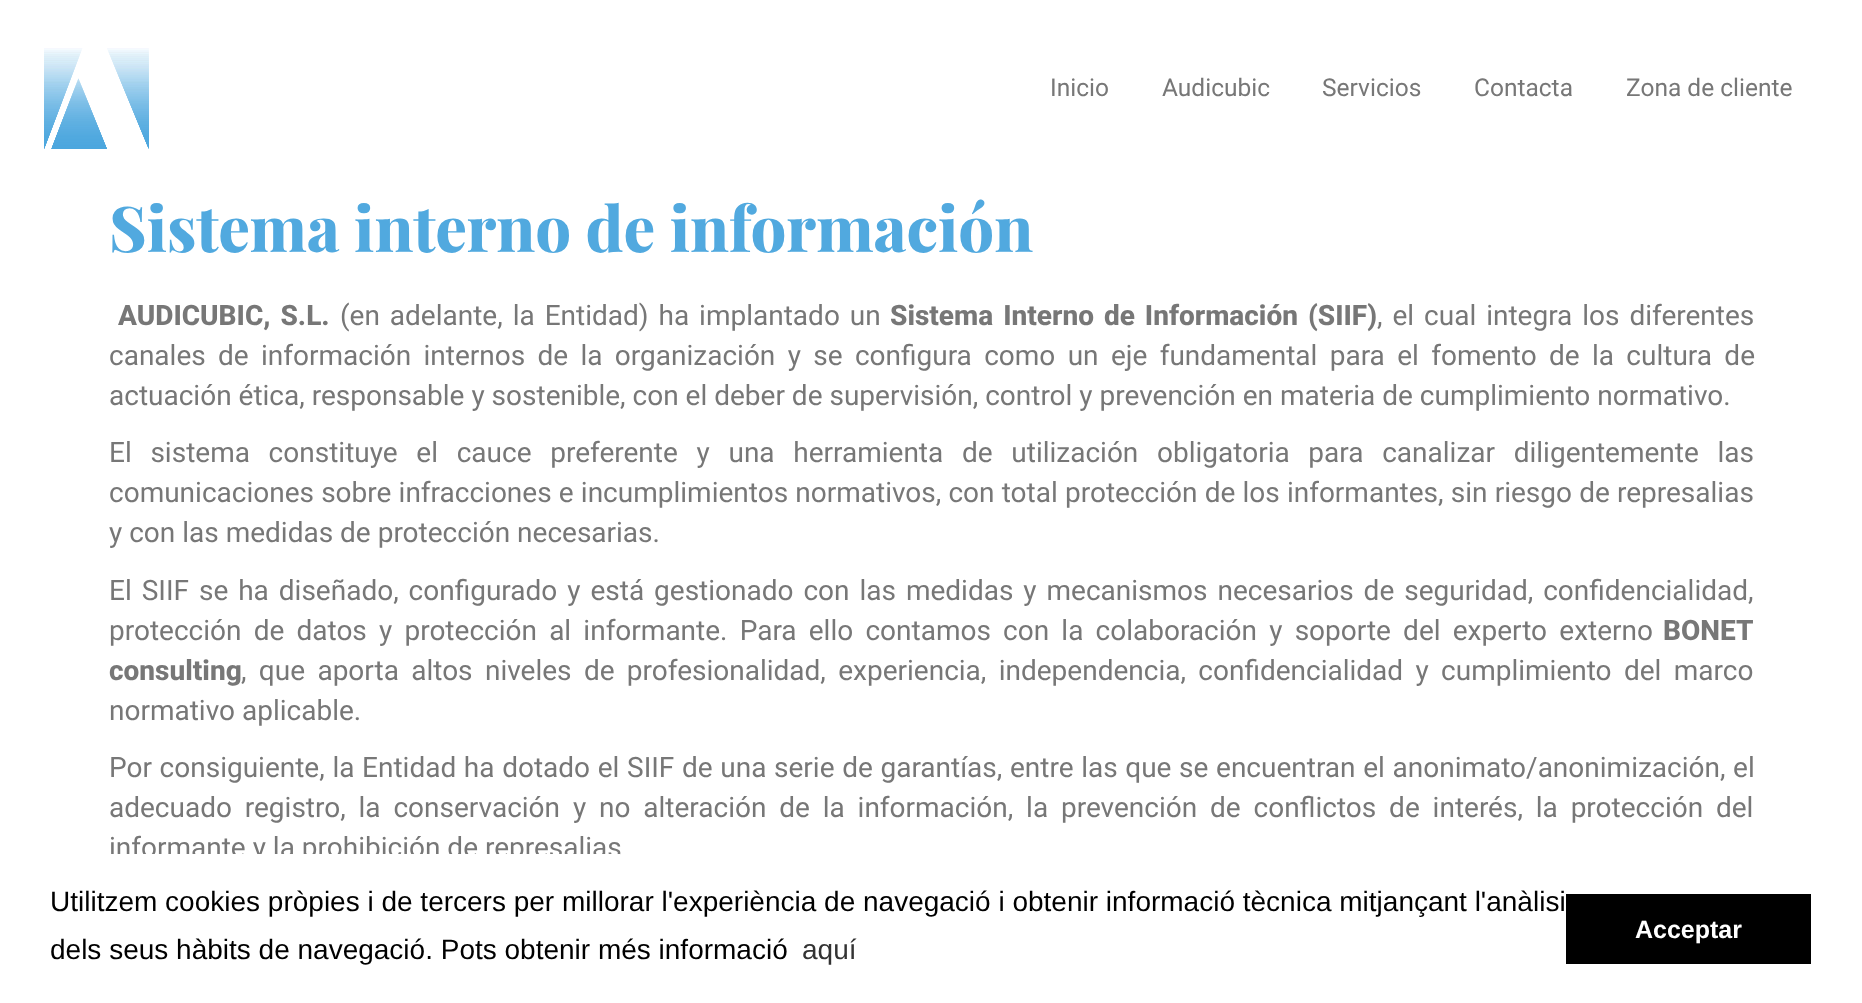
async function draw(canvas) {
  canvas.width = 1862;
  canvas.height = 1003;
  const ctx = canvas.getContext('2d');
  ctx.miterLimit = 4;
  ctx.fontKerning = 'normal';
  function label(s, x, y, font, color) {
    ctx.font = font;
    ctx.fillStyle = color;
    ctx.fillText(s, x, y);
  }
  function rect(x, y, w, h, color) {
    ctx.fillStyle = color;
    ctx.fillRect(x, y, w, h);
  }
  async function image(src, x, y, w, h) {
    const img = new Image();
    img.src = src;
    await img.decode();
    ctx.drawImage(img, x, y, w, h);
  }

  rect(0, 0, 1862, 1003, '#fff');
  await image('assets/img1.png', 44, 48, 105, 101);
  label('Inicio', 1050, 96, '24.5px Roboto', '#777');
  label('Audicubic', 1162, 96, '24.5px Roboto', '#777');
  label('Servicios', 1322, 96, '24.5px Roboto', '#777');
  label('Contacta', 1474, 96, '24.5px Roboto', '#777');
  label('Zona de cliente', 1626, 96, '24.5px Roboto', '#777');
  label('Sistema interno de información', 109, 252, '800 63px Playfair Display', '#51a9df');
  ctx.wordSpacing = '3px';
  label('AUDICUBIC, S.L.', 118, 325, '800 28px Roboto', '#777');
  label('(en adelante, la Entidad) ha implantado un', 340, 325, '28px Roboto', '#777');
  label('Sistema Interno de Información (SIIF)', 890, 325, '800 28px Roboto', '#777');
  label(', el cual integra los diferentes', 1377, 325, '28px Roboto', '#777');
  ctx.wordSpacing = '5.4px';
  label('canales de información internos de la organización y se configura como un eje fundamental para el fomento de la cultura de', 109, 365, '28px Roboto', '#777');
  ctx.wordSpacing = '0px';
  label('actuación ética, responsable y sostenible, con el deber de supervisión, control y prevención en materia de cumplimiento normativo.', 109, 405, '28px Roboto', '#777');
  ctx.wordSpacing = '11.75px';
  label('El sistema constituye el cauce preferente y una herramienta de utilización obligatoria para canalizar diligentemente las', 109, 462, '28px Roboto', '#777');
  ctx.wordSpacing = '0.25px';
  label('comunicaciones sobre infracciones e incumplimientos normativos, con total protección de los informantes, sin riesgo de represalias', 109, 502, '28px Roboto', '#777');
  ctx.wordSpacing = '0px';
  label('y con las medidas de protección necesarias.', 109, 542, '28px Roboto', '#777');
  ctx.wordSpacing = '3px';
  label('El SIIF se ha diseñado, configurado y está gestionado con las medidas y mecanismos necesarios de seguridad, confidencialidad,', 109, 600, '28px Roboto', '#777');
  ctx.wordSpacing = '5.25px';
  label('protección de datos y protección al informante. Para ello contamos con la colaboración y soporte del experto externo', 109, 640, '28px Roboto', '#777');
  ctx.wordSpacing = '0px';
  label('BONET', 1663, 640, '800 28px Roboto', '#777');
  label('consulting', 109, 680, '800 28px Roboto', '#777');
  ctx.wordSpacing = '5.4px';
  label(', que aporta altos niveles de profesionalidad, experiencia, independencia, confidencialidad y cumplimiento del marco', 241, 680, '28px Roboto', '#777');
  ctx.wordSpacing = '0px';
  label('normativo aplicable.', 109, 720, '28px Roboto', '#777');
  ctx.wordSpacing = '0.7px';
  label('Por consiguiente, la Entidad ha dotado el SIIF de una serie de garantías, entre las que se encuentran el anonimato/anonimización, el', 109, 777, '28px Roboto', '#777');
  ctx.wordSpacing = '5.9px';
  label('adecuado registro, la conservación y no alteración de la información, la prevención de conflictos de interés, la protección del', 109, 817, '28px Roboto', '#777');
  ctx.wordSpacing = '0px';
  label('informante y la prohibición de represalias', 109, 857, '28px Roboto', '#777');
  rect(110, 854, 510, 9, '#fff');
  label('Utilitzem cookies pròpies i de tercers per millorar l\'experiència de navegació i obtenir informació tècnica mitjançant l\'anàlisi', 50, 911, '28px Liberation Sans', '#000');
  label('dels seus hàbits de navegació. Pots obtenir més informació', 50, 959, '28px Liberation Sans', '#000');
  label('aquí', 802, 959, '28px Liberation Sans', '#333');
  rect(1566, 894, 245, 70, '#000');
  label('Acceptar', 1635, 938, 'bold 25px Liberation Sans', '#fff');
}

draw(document.querySelector('canvas'));
